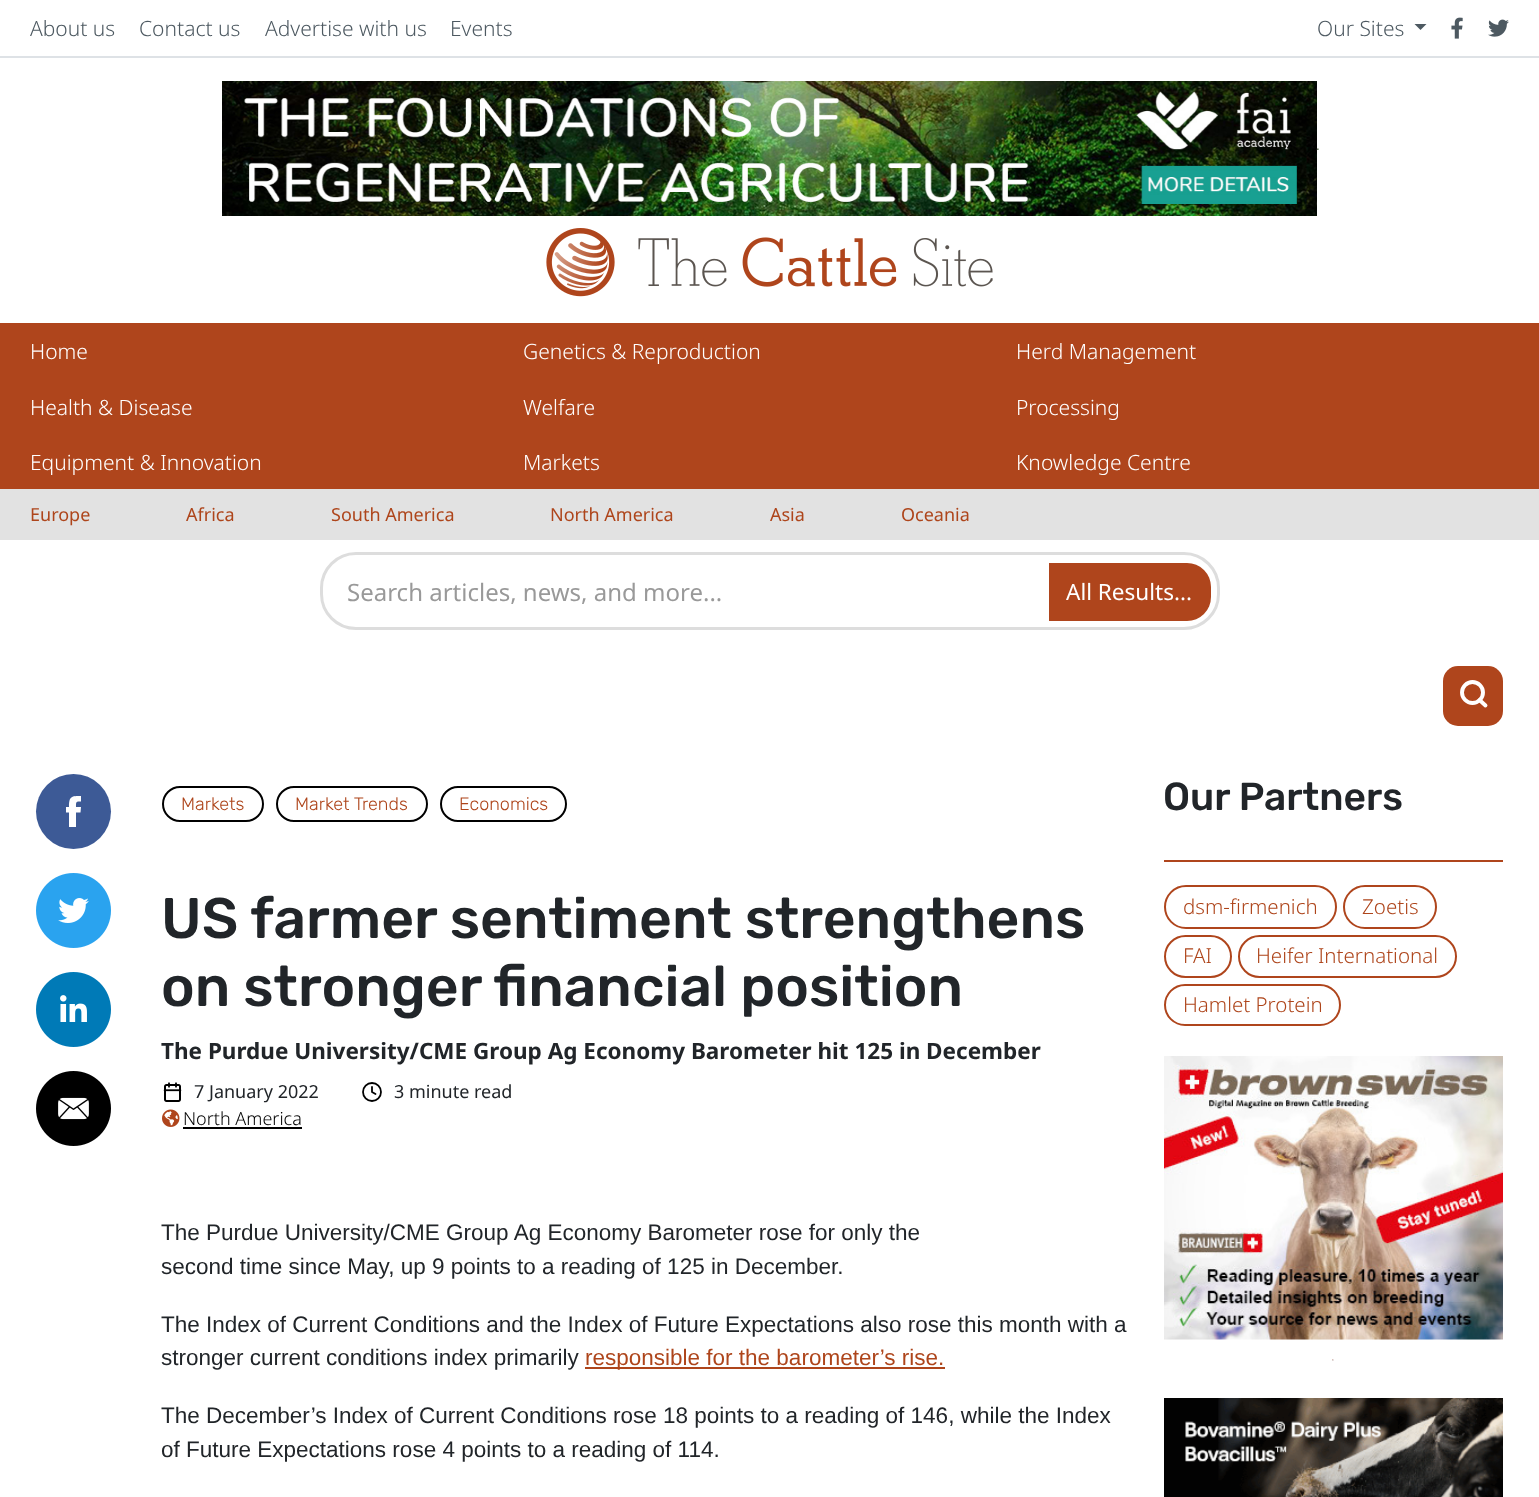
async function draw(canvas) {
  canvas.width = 1539;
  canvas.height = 1497;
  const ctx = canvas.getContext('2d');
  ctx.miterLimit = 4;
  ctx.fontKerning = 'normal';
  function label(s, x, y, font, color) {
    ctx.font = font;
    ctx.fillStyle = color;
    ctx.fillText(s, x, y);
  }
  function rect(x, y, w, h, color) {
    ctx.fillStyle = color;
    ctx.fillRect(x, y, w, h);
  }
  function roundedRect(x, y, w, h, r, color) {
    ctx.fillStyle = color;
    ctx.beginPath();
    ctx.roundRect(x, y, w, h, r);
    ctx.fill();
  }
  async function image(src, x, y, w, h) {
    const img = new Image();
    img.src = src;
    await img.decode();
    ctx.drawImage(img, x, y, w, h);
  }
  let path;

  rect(0, 0, 1539, 1497, '#fff');
  rect(0, 56, 1539, 2, '#dee2e6');
  label('About us', 30, 36, '300 21px Noto Sans', '#4d5961');
  label('Contact us', 139, 36, '300 21px Noto Sans', '#4d5961');
  label('Advertise with us', 265, 36, '300 21px Noto Sans', '#4d5961');
  label('Events', 450, 36, '300 21px Noto Sans', '#4d5961');
  label('Our Sites', 1317, 36, '300 21px Noto Sans', '#4d5961');
  path = new Path2D('M1414.5 24H1426.5L1420.5 30Z');
  ctx.fill(path);
  await image('assets/img1.png', 1451, 17, 12, 22);
  await image('assets/img2.png', 1488, 19, 21, 18);
  await image('assets/img3.png', 222, 81, 1095, 135);
  await image('assets/img4.png', 1316, 148, 3, 2);
  await image('assets/img5.png', 546, 228, 447, 69);
  rect(0, 323, 1539, 166, '#af451c');
  label('Home', 30, 359, '300 21px Noto Sans', '#fff');
  label('Genetics & Reproduction', 523, 359, '300 21px Noto Sans', '#fff');
  label('Herd Management', 1016, 359, '300 21px Noto Sans', '#fff');
  label('Health & Disease', 30, 415, '300 21px Noto Sans', '#fff');
  label('Welfare', 523, 415, '300 21px Noto Sans', '#fff');
  label('Processing', 1016, 415, '300 21px Noto Sans', '#fff');
  label('Equipment & Innovation', 30, 470, '300 21px Noto Sans', '#fff');
  label('Markets', 523, 470, '300 21px Noto Sans', '#fff');
  label('Knowledge Centre', 1016, 470, '300 21px Noto Sans', '#fff');
  rect(0, 489, 1539, 51, '#e2e2e2');
  label('Europe', 30, 521, '18px Noto Sans', '#ae451b');
  label('Africa', 186, 521, '18px Noto Sans', '#ae451b');
  label('South America', 331, 521, '18px Noto Sans', '#ae451b');
  label('North America', 550, 521, '18px Noto Sans', '#ae451b');
  label('Asia', 770, 521, '18px Noto Sans', '#ae451b');
  label('Oceania', 901, 521, '18px Noto Sans', '#ae451b');
  ctx.beginPath();
  ctx.roundRect(321.5, 553.5, 897, 75, 34.5);
  ctx.strokeStyle = '#ddd';
  ctx.lineWidth = 3;
  ctx.stroke();
  label('Search articles, news, and more...', 347, 601, '24px Noto Sans', '#999');
  ctx.fillStyle = '#af451c';
  ctx.beginPath();
  ctx.roundRect(1049, 563, 162, 58, [0, 24, 24, 0]);
  ctx.fill();
  label('All Results...', 1066, 600, '22.5px Noto Sans', '#fff');
  roundedRect(1443, 666, 60, 60, 15, '#af451c');
  ctx.beginPath();
  ctx.arc(1472.5, 692.5, 10.5, 0, 2 * Math.PI);
  ctx.strokeStyle = '#fff';
  ctx.lineWidth = 3.9;
  ctx.stroke();
  path = new Path2D('M1485.5 705.5L1479.5 700');
  ctx.lineCap = 'round';
  ctx.lineJoin = 'round';
  ctx.stroke(path);
  ctx.fillStyle = '#3d5a96';
  ctx.beginPath();
  ctx.arc(73.5, 811.5, 37.5, 0, 2 * Math.PI);
  ctx.fill();
  ctx.fillStyle = '#fff';
  path = new Path2D('M76 827H69V812.5H66V807H69C69 796 71.5 796 81 796V801.5C76 801.5 76 801.5 76 807H81L80.5 812.5H76Z');
  ctx.fill(path);
  await image('assets/img6.png', 36, 873, 75, 75);
  await image('assets/img7.png', 36, 972, 75, 75);
  await image('assets/img8.png', 36, 1071, 75, 75);
  ctx.beginPath();
  ctx.roundRect(163, 787, 100, 34, 17);
  ctx.strokeStyle = '#000';
  ctx.lineWidth = 2;
  ctx.lineJoin = 'miter';
  ctx.stroke();
  label('Markets', 181, 810, '300 18px Rubik', '#ae451b');
  ctx.beginPath();
  ctx.roundRect(277, 787, 150, 34, 17);
  ctx.stroke();
  label('Market Trends', 295, 810, '300 18px Rubik', '#ae451b');
  ctx.beginPath();
  ctx.roundRect(441, 787, 125, 34, 17);
  ctx.stroke();
  label('Economics', 459, 810, '300 18px Rubik', '#ae451b');
  label('US farmer sentiment strengthens', 161, 938, '500 57px Rubik', '#212529');
  label('on stronger financial position', 161, 1006, '500 57px Rubik', '#212529');
  label('The Purdue University/CME Group Ag Economy Barometer hit 125 in December', 161, 1059, 'bold 22.5px Noto Sans', '#212529');
  await image('assets/img9.png', 163, 1082, 19, 20);
  label('7 January 2022', 194, 1098, '18px Noto Sans', '#212529');
  ctx.beginPath();
  ctx.arc(372, 1092, 9, 0, 2 * Math.PI);
  ctx.lineWidth = 1.8;
  ctx.stroke();
  path = new Path2D('M372 1087V1092L375.5 1094');
  ctx.lineJoin = 'round';
  ctx.stroke(path);
  label('3 minute read', 394, 1098, '18px Noto Sans', '#212529');
  await image('assets/img10.png', 162, 1109, 18, 18);
  label('North America', 183, 1125, '300 18px Noto Sans', '#000');
  rect(183, 1127, 119, 2, '#000');
  label('The Purdue University/CME Group Ag Economy Barometer rose for only the', 161, 1240, '22.5px Liberation Sans', '#212529');
  label('second time since May, up 9 points to a reading of 125 in December.', 161, 1274, '22.5px Liberation Sans', '#212529');
  label('The Index of Current Conditions and the Index of Future Expectations also rose this month with a', 161, 1332, '22.5px Liberation Sans', '#212529');
  label('stronger current conditions index primarily', 161, 1365, '22.5px Liberation Sans', '#212529');
  rect(585, 1367, 360, 2, '#ae451b');
  label('responsible for the barometer’s rise.', 585, 1365, '22.5px Liberation Sans', '#ae451b');
  label('The December’s Index of Current Conditions rose 18 points to a reading of 146, while the Index', 161, 1423, '22.5px Liberation Sans', '#212529');
  label('of Future Expectations rose 4 points to a reading of 114.', 161, 1457, '22.5px Liberation Sans', '#212529');
  label('Our Partners', 1163, 810, '500 39px Rubik', '#212529');
  rect(1164, 860, 339, 2, '#af451c');
  ctx.beginPath();
  ctx.roundRect(1165, 886, 171, 42, 21);
  ctx.strokeStyle = '#af451c';
  ctx.lineWidth = 2;
  ctx.lineJoin = 'miter';
  ctx.stroke();
  label('dsm-firmenich', 1183, 914, '300 20.5px Noto Sans', '#ae451b');
  ctx.beginPath();
  ctx.roundRect(1344, 886, 92, 42, 21);
  ctx.stroke();
  label('Zoetis', 1362, 914, '300 20.5px Noto Sans', '#ae451b');
  ctx.beginPath();
  ctx.roundRect(1165, 936, 66, 41, 20.5);
  ctx.stroke();
  label('FAI', 1183, 963, '300 20.5px Noto Sans', '#ae451b');
  ctx.beginPath();
  ctx.roundRect(1239, 936, 217, 41, 20.5);
  ctx.stroke();
  label('Heifer International', 1256, 963, '300 20.5px Noto Sans', '#ae451b');
  ctx.beginPath();
  ctx.roundRect(1165, 985, 175, 40, 20);
  ctx.stroke();
  label('Hamlet Protein', 1183, 1012, '300 20.5px Noto Sans', '#ae451b');
  await image('assets/img11.png', 1164, 1056, 339, 284);
  await image('assets/img12.png', 1332, 1359, 2, 2);
  await image('assets/img13.png', 1164, 1398, 339, 99);
}

draw(document.querySelector('canvas'));
